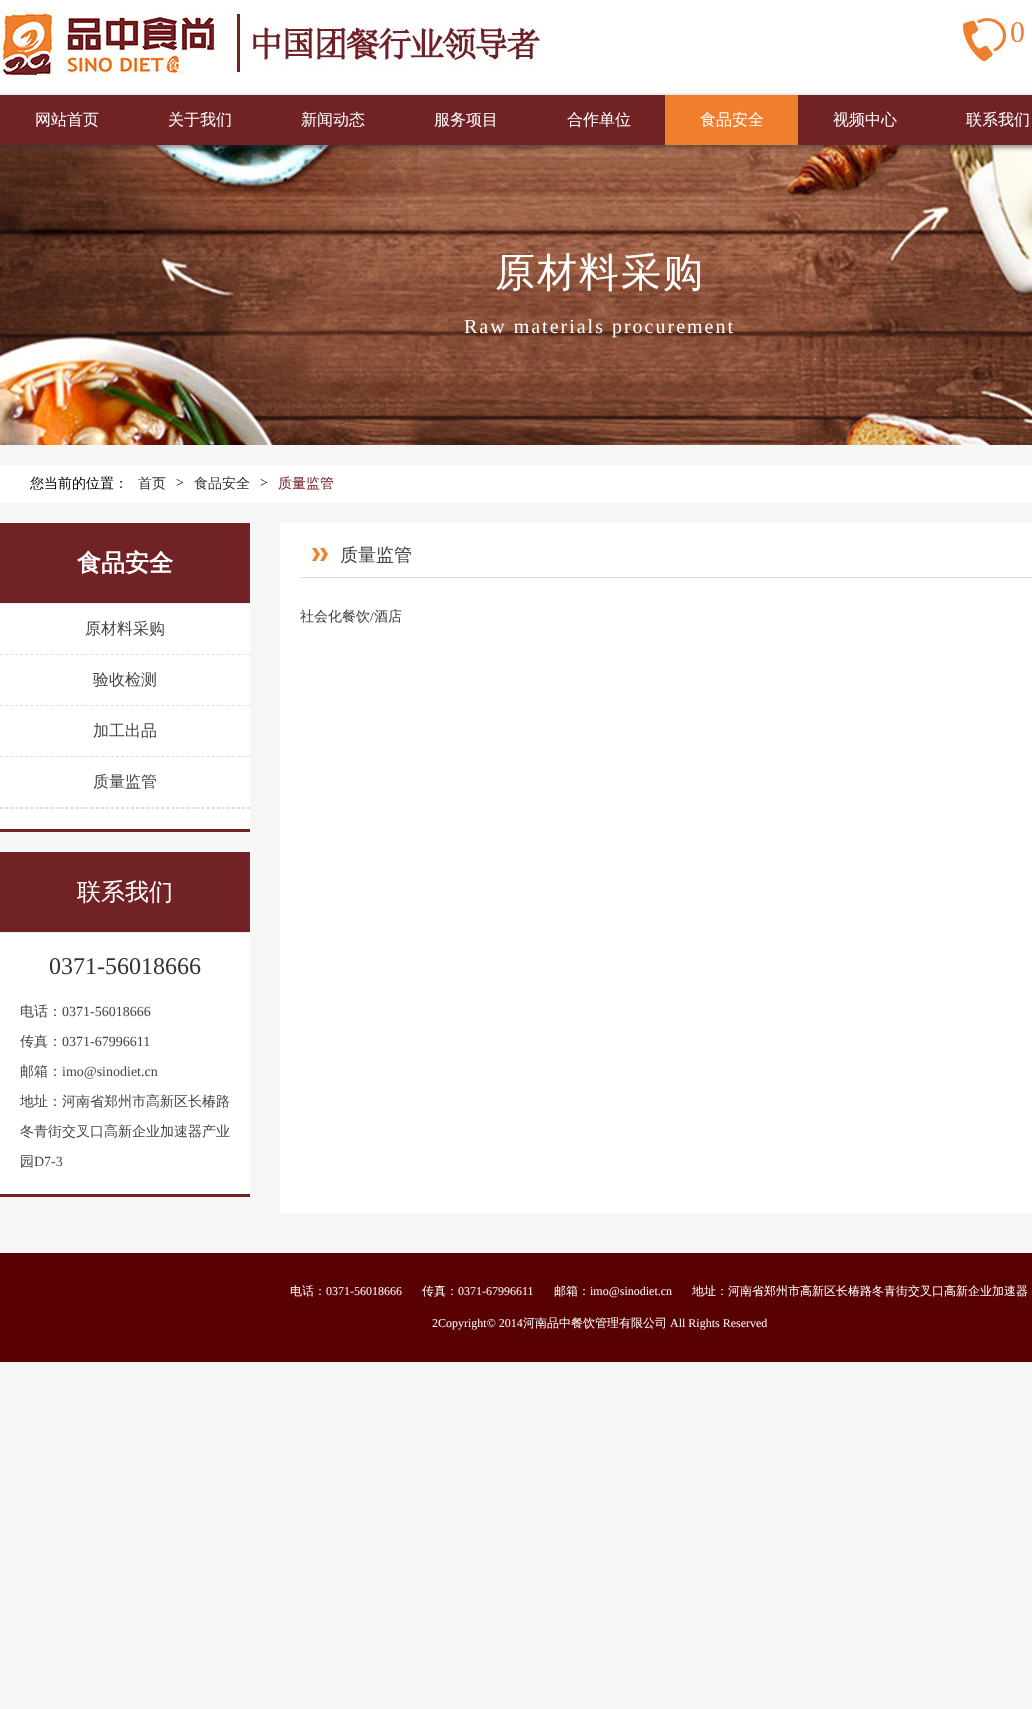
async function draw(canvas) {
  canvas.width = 1032;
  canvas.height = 1709;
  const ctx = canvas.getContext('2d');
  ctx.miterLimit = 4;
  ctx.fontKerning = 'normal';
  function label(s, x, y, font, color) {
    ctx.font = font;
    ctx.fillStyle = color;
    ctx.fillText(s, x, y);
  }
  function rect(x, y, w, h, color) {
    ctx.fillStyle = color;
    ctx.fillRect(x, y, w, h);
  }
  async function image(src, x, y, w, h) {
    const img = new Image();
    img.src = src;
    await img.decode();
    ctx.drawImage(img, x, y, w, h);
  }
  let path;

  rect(0, 0, 1032, 1709, '#f6f6f6');
  rect(0, 0, 1032, 95, '#fff');
  await image('assets/img1.png', 0, 10, 540, 70);
  await image('assets/img2.png', 960, 15, 48, 48);
  label('0', 1010, 42, '30px Liberation Serif', '#ef7f2d');
  await image('assets/img3.png', 0, 145, 1032, 300);
  ctx.fillStyle = '#33333380';
  ctx.filter = 'blur(2px)';
  ctx.beginPath();
  ctx.rect(-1, 96, 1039, 52);
  ctx.fill();
  ctx.filter = 'none';
  rect(0, 95, 1032, 50, '#712225');
  label('网站首页', 35, 125, '500 16px WenQuanYi Zen Hei', '#fff');
  label('关于我们', 168, 125, '500 16px WenQuanYi Zen Hei', '#fff');
  label('新闻动态', 301, 125, '500 16px WenQuanYi Zen Hei', '#fff');
  label('服务项目', 434, 125, '500 16px WenQuanYi Zen Hei', '#fff');
  label('合作单位', 567, 125, '500 16px WenQuanYi Zen Hei', '#fff');
  rect(665, 95, 133, 50, '#ef7f2d');
  label('食品安全', 700, 125, '500 16px WenQuanYi Zen Hei', '#fff');
  label('视频中心', 833, 125, '500 16px WenQuanYi Zen Hei', '#fff');
  label('联系我们', 966, 125, '500 16px WenQuanYi Zen Hei', '#fff');
  ctx.letterSpacing = '2px';
  label('原材料采购', 495, 286, '500 40px WenQuanYi Zen Hei', '#fff');
  label('Raw materials procurement', 464, 333, '20px Liberation Serif', '#fff');
  rect(0, 465, 1032, 38, '#fff');
  ctx.letterSpacing = '0px';
  label('您当前的位置：', 30, 488, '500 14px WenQuanYi Zen Hei', '#000');
  label('首页', 138, 488, '500 14px WenQuanYi Zen Hei', '#333');
  label('>', 176, 487, '14px Liberation Serif', '#000');
  label('食品安全', 194, 488, '500 14px WenQuanYi Zen Hei', '#333');
  label('>', 260, 487, '14px Liberation Serif', '#000');
  label('质量监管', 278, 488, '500 14px WenQuanYi Zen Hei', '#712225');
  rect(0, 604, 250, 225, '#fff');
  rect(0, 829, 250, 3, '#712225');
  rect(0, 523, 250, 80, '#712225');
  rect(0, 603, 250, 1, '#eee');
  label('食品安全', 77, 571, 'bold 24px WenQuanYi Zen Hei', '#fff');
  path = new Path2D('M0 808.5H250');
  ctx.strokeStyle = '#ddd';
  ctx.setLineDash([3, 2.04]);
  ctx.stroke(path);
  path = new Path2D('M0 654.5H250');
  ctx.stroke(path);
  label('原材料采购', 85, 634, '500 16px WenQuanYi Zen Hei', '#444');
  path = new Path2D('M0 705.5H250');
  ctx.stroke(path);
  label('验收检测', 93, 685, '500 16px WenQuanYi Zen Hei', '#444');
  path = new Path2D('M0 756.5H250');
  ctx.stroke(path);
  label('加工出品', 93, 736, '500 16px WenQuanYi Zen Hei', '#444');
  path = new Path2D('M0 807.5H250');
  ctx.stroke(path);
  label('质量监管', 93, 787, '500 16px WenQuanYi Zen Hei', '#444');
  rect(0, 933, 250, 261, '#fff');
  rect(0, 1194, 250, 3, '#712225');
  rect(0, 852, 250, 80, '#712225');
  rect(0, 932, 250, 1, '#eee');
  label('联系我们', 77, 900, '500 24px WenQuanYi Zen Hei', '#fff');
  label('0371-56018666', 49, 974, '24px Liberation Serif', '#333');
  label('电话：', 20, 1016, '500 14px WenQuanYi Zen Hei', '#444');
  label('0371-56018666', 62, 1016, '14px Liberation Serif', '#444');
  label('传真：', 20, 1046, '500 14px WenQuanYi Zen Hei', '#444');
  label('0371-67996611', 62, 1046, '14px Liberation Serif', '#444');
  label('邮箱：', 20, 1076, '500 14px WenQuanYi Zen Hei', '#444');
  label('imo@sinodiet.cn', 62, 1076, '14px Liberation Serif', '#444');
  label('地址：河南省郑州市高新区长椿路', 20, 1106, '500 14px WenQuanYi Zen Hei', '#444');
  label('冬青街交叉口高新企业加速器产业', 20, 1136, '500 14px WenQuanYi Zen Hei', '#444');
  label('园', 20, 1166, '500 14px WenQuanYi Zen Hei', '#444');
  label('D7-3', 34, 1166, '14px Liberation Serif', '#444');
  rect(280, 523, 752, 690, '#fff');
  await image('assets/img4.png', 310, 545, 20, 16);
  rect(300, 577, 732, 1, '#ddd');
  label('质量监管', 340, 561, '500 18px WenQuanYi Zen Hei', '#444');
  label('社会化餐饮', 300, 621, '500 14px WenQuanYi Zen Hei', '#3d3d3d');
  label('/', 370, 621, '14px Liberation Serif', '#3d3d3d');
  label('酒店', 374, 621, '500 14px WenQuanYi Zen Hei', '#3d3d3d');
  rect(0, 1253, 1032, 109, '#590002');
  label('电话：', 290, 1295, '500 12px WenQuanYi Zen Hei', '#fff');
  label('0371-56018666', 326, 1295, '12px Liberation Serif', '#fff');
  label('传真：', 422, 1295, '500 12px WenQuanYi Zen Hei', '#fff');
  label('0371-67996611', 458, 1295, '12px Liberation Serif', '#fff');
  label('邮箱：', 554, 1295, '500 12px WenQuanYi Zen Hei', '#fff');
  label('imo@sinodiet.cn', 590, 1295, '12px Liberation Serif', '#fff');
  label('地址：河南省郑州市高新区长椿路冬青街交叉口高新企业加速器', 692, 1295, '500 12px WenQuanYi Zen Hei', '#fff');
  label('2Copyright© 2014', 432, 1327, '12px Liberation Serif', '#fff');
  label('河南品中餐饮管理有限公司', 523, 1327, '500 12px WenQuanYi Zen Hei', '#fff');
  label('All Rights Reserved', 670, 1327, '12px Liberation Serif', '#fff');
}

draw(document.querySelector('canvas'));
